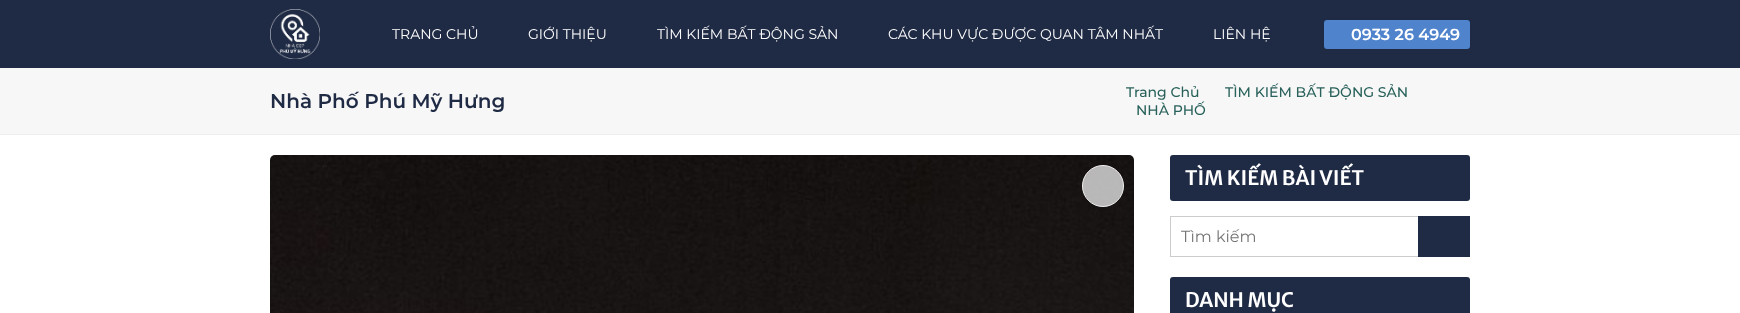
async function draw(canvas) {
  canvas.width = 1740;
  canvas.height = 313;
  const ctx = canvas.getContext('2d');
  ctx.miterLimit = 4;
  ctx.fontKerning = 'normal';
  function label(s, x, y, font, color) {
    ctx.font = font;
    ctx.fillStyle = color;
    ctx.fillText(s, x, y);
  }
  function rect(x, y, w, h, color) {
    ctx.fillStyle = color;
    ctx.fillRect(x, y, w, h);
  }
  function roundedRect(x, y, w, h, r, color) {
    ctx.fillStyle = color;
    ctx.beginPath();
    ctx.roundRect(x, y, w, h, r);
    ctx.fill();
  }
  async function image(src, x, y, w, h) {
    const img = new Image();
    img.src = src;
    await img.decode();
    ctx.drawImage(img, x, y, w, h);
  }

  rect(0, 0, 1740, 313, '#fff');
  rect(0, 0, 1740, 68, '#1f2a44');
  await image('assets/img1.png', 270, 9, 50, 50);
  label('TRANG CHỦ', 392, 39, '14px Montserrat', '#fff');
  label('GIỚI THIỆU', 528, 39, '14px Montserrat', '#fff');
  label('TÌM KIẾM BẤT ĐỘNG SẢN', 657, 39, '14px Montserrat', '#fff');
  label('CÁC KHU VỰC ĐƯỢC QUAN TÂM NHẤT', 888, 39, '14px Montserrat', '#fff');
  label('LIÊN HỆ', 1213, 39, '14px Montserrat', '#fff');
  roundedRect(1324, 20, 146, 29, 3, '#4f83cc');
  label('0933 26 4949', 1351, 40, '600 16px Montserrat', '#fff');
  rect(0, 68, 1740, 66, '#f7f7f7');
  rect(0, 134, 1740, 1, '#eee');
  label('Nhà Phố Phú Mỹ Hưng', 270, 108, '600 20px Montserrat', '#1f2a44');
  label('Trang Chủ', 1126, 97, '500 14px Montserrat', '#29625b');
  label('TÌM KIẾM BẤT ĐỘNG SẢN', 1225, 97, '500 14px Montserrat', '#29625b');
  label('NHÀ PHỐ', 1136, 115, '500 14px Montserrat', '#29625b');
  await image('assets/img2.png', 270, 155, 864, 158);
  ctx.fillStyle = '#ffffffb3';
  ctx.beginPath();
  ctx.arc(1103, 186, 20.5, 0, 2 * Math.PI);
  ctx.fill();
  ctx.strokeStyle = '#f1f1f1';
  ctx.stroke();
  roundedRect(1170, 155, 300, 46, 3, '#1f2a44');
  label('TÌM KIẾM BÀI VIẾT', 1185, 185, '600 20px Merriweather Sans', '#fff');
  ctx.strokeStyle = '#ccc';
  ctx.strokeRect(1170.5, 216.5, 299, 40);
  label('Tìm kiếm', 1181, 242, '16px Montserrat', '#757575');
  rect(1418, 216, 52, 41, '#1f2a44');
  roundedRect(1170, 277, 300, 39, 3, '#1f2a44');
  label('DANH MỤC', 1185, 307, '600 20px Merriweather Sans', '#fff');
}

draw(document.querySelector('canvas'));
